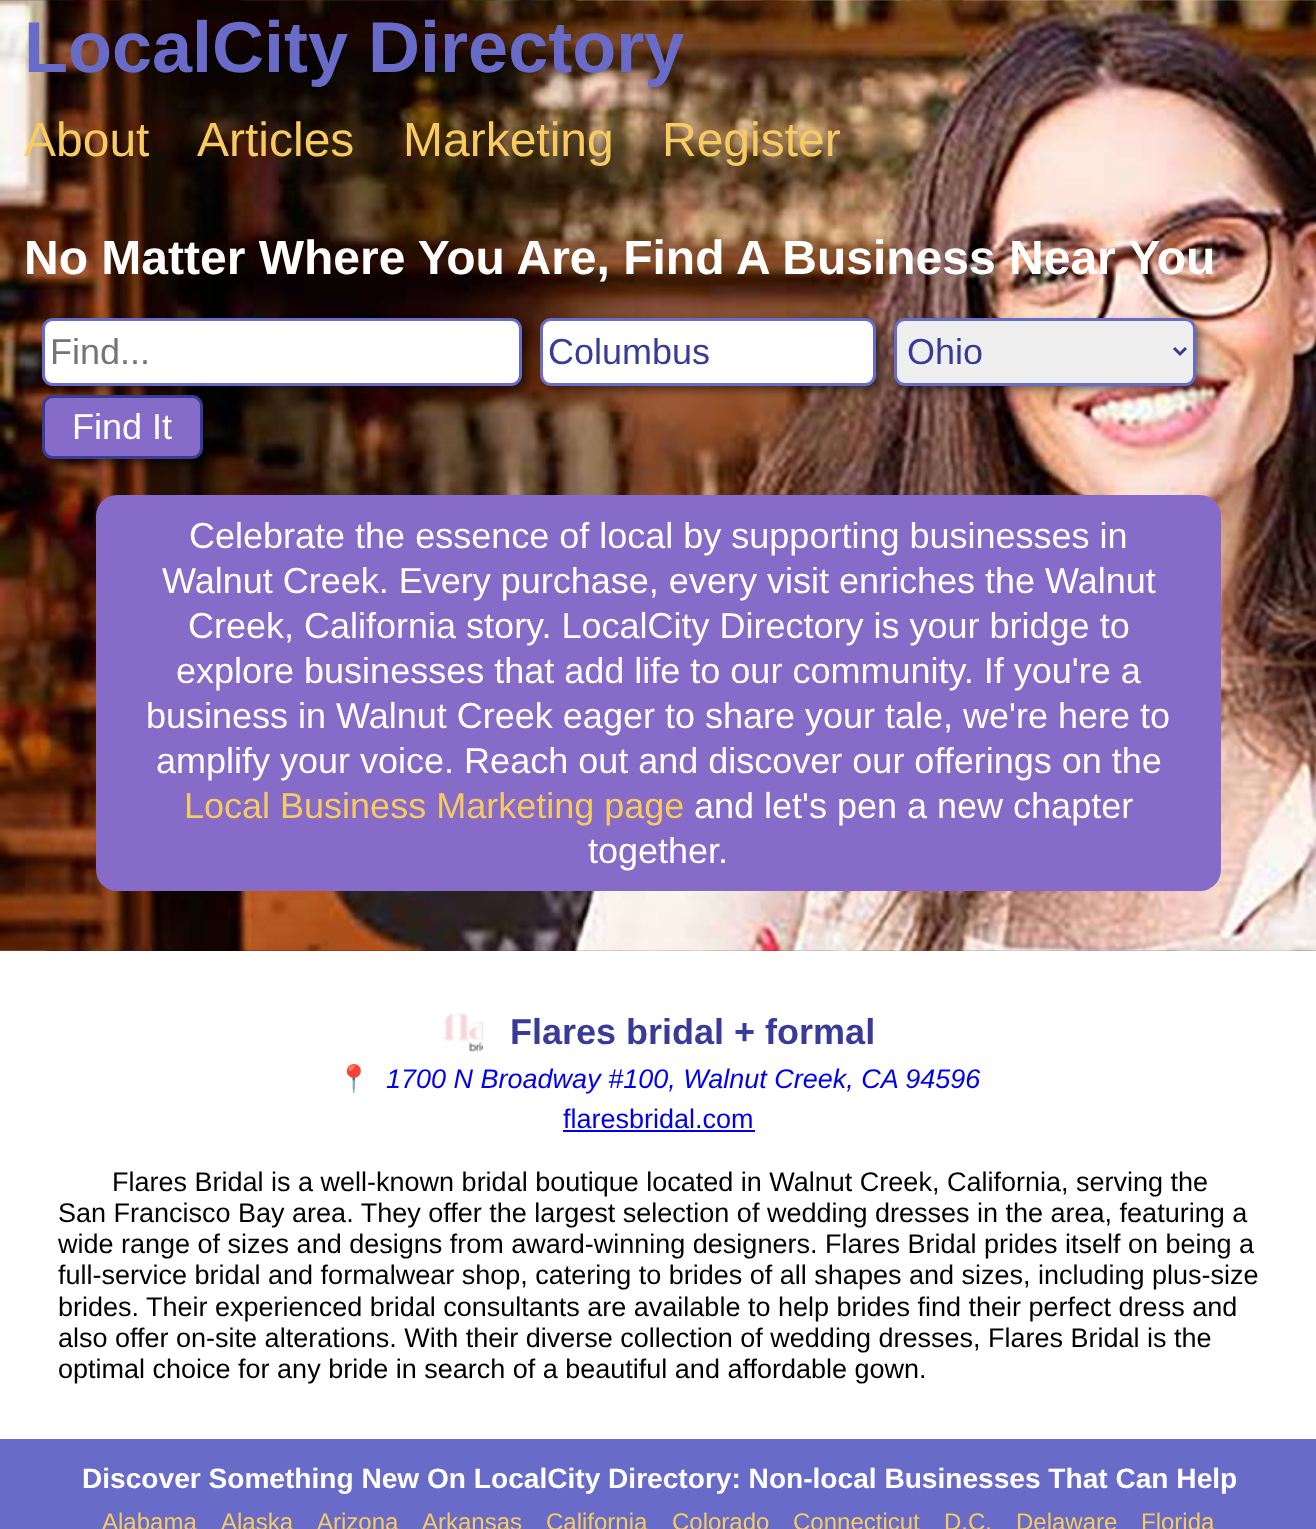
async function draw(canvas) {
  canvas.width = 1316;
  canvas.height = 1529;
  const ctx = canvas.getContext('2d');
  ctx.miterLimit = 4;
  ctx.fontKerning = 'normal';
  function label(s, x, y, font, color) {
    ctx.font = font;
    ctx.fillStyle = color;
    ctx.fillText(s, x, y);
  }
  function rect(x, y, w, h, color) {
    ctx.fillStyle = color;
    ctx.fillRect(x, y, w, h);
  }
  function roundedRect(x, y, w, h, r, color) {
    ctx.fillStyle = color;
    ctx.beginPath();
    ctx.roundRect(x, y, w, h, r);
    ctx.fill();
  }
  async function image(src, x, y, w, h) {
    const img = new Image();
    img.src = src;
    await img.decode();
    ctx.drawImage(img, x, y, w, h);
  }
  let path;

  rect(0, 0, 1316, 1529, '#fff');
  await image('assets/img1.png', 0, 0, 1316, 951);
  label('LocalCity Directory', 24, 72, 'bold 72px Liberation Sans', '#686cc8');
  label('About', 24, 156, '48px Liberation Sans', '#f7cb62');
  label('Articles', 197, 156, '48px Liberation Sans', '#f7cb62');
  label('Marketing', 403, 156, '48px Liberation Sans', '#f7cb62');
  label('Register', 662, 156, '48px Liberation Sans', '#f7cb62');
  label('No Matter Where You Are, Find A Business Near You', 24, 274, 'bold 48px Liberation Sans', '#fff');
  ctx.fillStyle = '#00000080';
  ctx.filter = 'blur(4.5px)';
  ctx.beginPath();
  ctx.roundRect(47, 323, 480, 67, 11);
  ctx.fill();
  ctx.filter = 'none';
  ctx.fillStyle = '#fff';
  ctx.beginPath();
  ctx.roundRect(43.5, 319.5, 477, 65, 9.5);
  ctx.fill();
  ctx.strokeStyle = '#686cc8';
  ctx.lineWidth = 3;
  ctx.stroke();
  label('Find...', 50, 364, '36px Liberation Sans', '#757575');
  ctx.fillStyle = '#00000080';
  ctx.filter = 'blur(4.5px)';
  ctx.beginPath();
  ctx.roundRect(545, 323, 336, 67, 11);
  ctx.fill();
  ctx.filter = 'none';
  ctx.fillStyle = '#fff';
  ctx.beginPath();
  ctx.roundRect(541.5, 319.5, 333, 65, 9.5);
  ctx.fill();
  ctx.stroke();
  label('Columbus', 548, 364, '36px Liberation Sans', '#383c98');
  ctx.fillStyle = '#00000080';
  ctx.filter = 'blur(4.5px)';
  ctx.beginPath();
  ctx.roundRect(899, 323, 301, 67, 11);
  ctx.fill();
  ctx.filter = 'none';
  ctx.fillStyle = '#efefef';
  ctx.beginPath();
  ctx.roundRect(895.5, 319.5, 299, 65, 9.5);
  ctx.fill();
  ctx.stroke();
  path = new Path2D('M1174 348L1180 354L1186 348');
  ctx.strokeStyle = '#383c98';
  ctx.stroke(path);
  label('Ohio', 907, 364, '36px Liberation Sans', '#383c98');
  ctx.fillStyle = '#00000080';
  ctx.filter = 'blur(4.5px)';
  ctx.beginPath();
  ctx.roundRect(47, 399, 160, 65, 11);
  ctx.fill();
  ctx.filter = 'none';
  ctx.fillStyle = '#866cc8';
  ctx.beginPath();
  ctx.roundRect(43.5, 396.5, 158, 61, 9.5);
  ctx.fill();
  ctx.stroke();
  label('Find It', 72, 439, '36px Liberation Sans', '#fff');
  roundedRect(96, 495, 1125, 396, 21, '#866cc8');
  label('Celebrate the essence of local by supporting businesses in', 189, 548, '36px Liberation Sans', '#fff');
  label('Walnut Creek. Every purchase, every visit enriches the Walnut', 162, 593, '36px Liberation Sans', '#fff');
  label('Creek, California story. LocalCity Directory is your bridge to', 188, 638, '36px Liberation Sans', '#fff');
  label('explore businesses that add life to our community. If you\'re a', 176, 683, '36px Liberation Sans', '#fff');
  label('business in Walnut Creek eager to share your tale, we\'re here to', 146, 728, '36px Liberation Sans', '#fff');
  label('amplify your voice. Reach out and discover our offerings on the', 156, 773, '36px Liberation Sans', '#fff');
  label('Local Business Marketing page', 184, 818, '36px Liberation Sans', '#f7cb62');
  label('and let\'s pen a new chapter', 694, 818, '36px Liberation Sans', '#fff');
  label('together.', 588, 863, '36px Liberation Sans', '#fff');
  await image('assets/img2.png', 443, 1013, 40, 39);
  label('Flares bridal + formal', 510, 1044, 'bold 36px Liberation Sans', '#383c98');
  label('📍', 337, 1088, '27px Noto Color Emoji', '#00e');
  label('1700 N Broadway #100, Walnut Creek, CA 94596', 386, 1088, 'italic 27px Liberation Sans', '#00e');
  label('flaresbridal.com', 563, 1128, '27px Liberation Sans', '#00e');
  rect(563, 1130, 192, 2, '#00e');
  label('Flares Bridal is a well-known bridal boutique located in Walnut Creek, California, serving the', 112, 1191, '27px Liberation Sans', '#000');
  label('San Francisco Bay area. They offer the largest selection of wedding dresses in the area, featuring a', 58, 1222, '27px Liberation Sans', '#000');
  label('wide range of sizes and designs from award-winning designers. Flares Bridal prides itself on being a', 58, 1253, '27px Liberation Sans', '#000');
  label('full-service bridal and formalwear shop, catering to brides of all shapes and sizes, including plus-size', 58, 1284, '27px Liberation Sans', '#000');
  label('brides. Their experienced bridal consultants are available to help brides find their perfect dress and', 58, 1316, '27px Liberation Sans', '#000');
  label('also offer on-site alterations. With their diverse collection of wedding dresses, Flares Bridal is the', 58, 1347, '27px Liberation Sans', '#000');
  label('optimal choice for any bride in search of a beautiful and affordable gown.', 58, 1378, '27px Liberation Sans', '#000');
  rect(0, 1439, 1316, 90, '#686cc8');
  label('Discover Something New On LocalCity Directory: Non-local Businesses That Can Help', 82, 1488, 'bold 28.1px Liberation Sans', '#fff');
  label('Alabama', 102, 1530, '24px Liberation Sans', '#f7cb62');
  label('Alaska', 221, 1530, '24px Liberation Sans', '#f7cb62');
  label('Arizona', 317, 1530, '24px Liberation Sans', '#f7cb62');
  label('Arkansas', 422, 1530, '24px Liberation Sans', '#f7cb62');
  label('California', 546, 1530, '24px Liberation Sans', '#f7cb62');
  label('Colorado', 672, 1530, '24px Liberation Sans', '#f7cb62');
  label('Connecticut', 793, 1530, '24px Liberation Sans', '#f7cb62');
  label('D.C.', 944, 1530, '24px Liberation Sans', '#f7cb62');
  label('Delaware', 1016, 1530, '24px Liberation Sans', '#f7cb62');
  label('Florida', 1141, 1530, '24px Liberation Sans', '#f7cb62');
}

draw(document.querySelector('canvas'));
